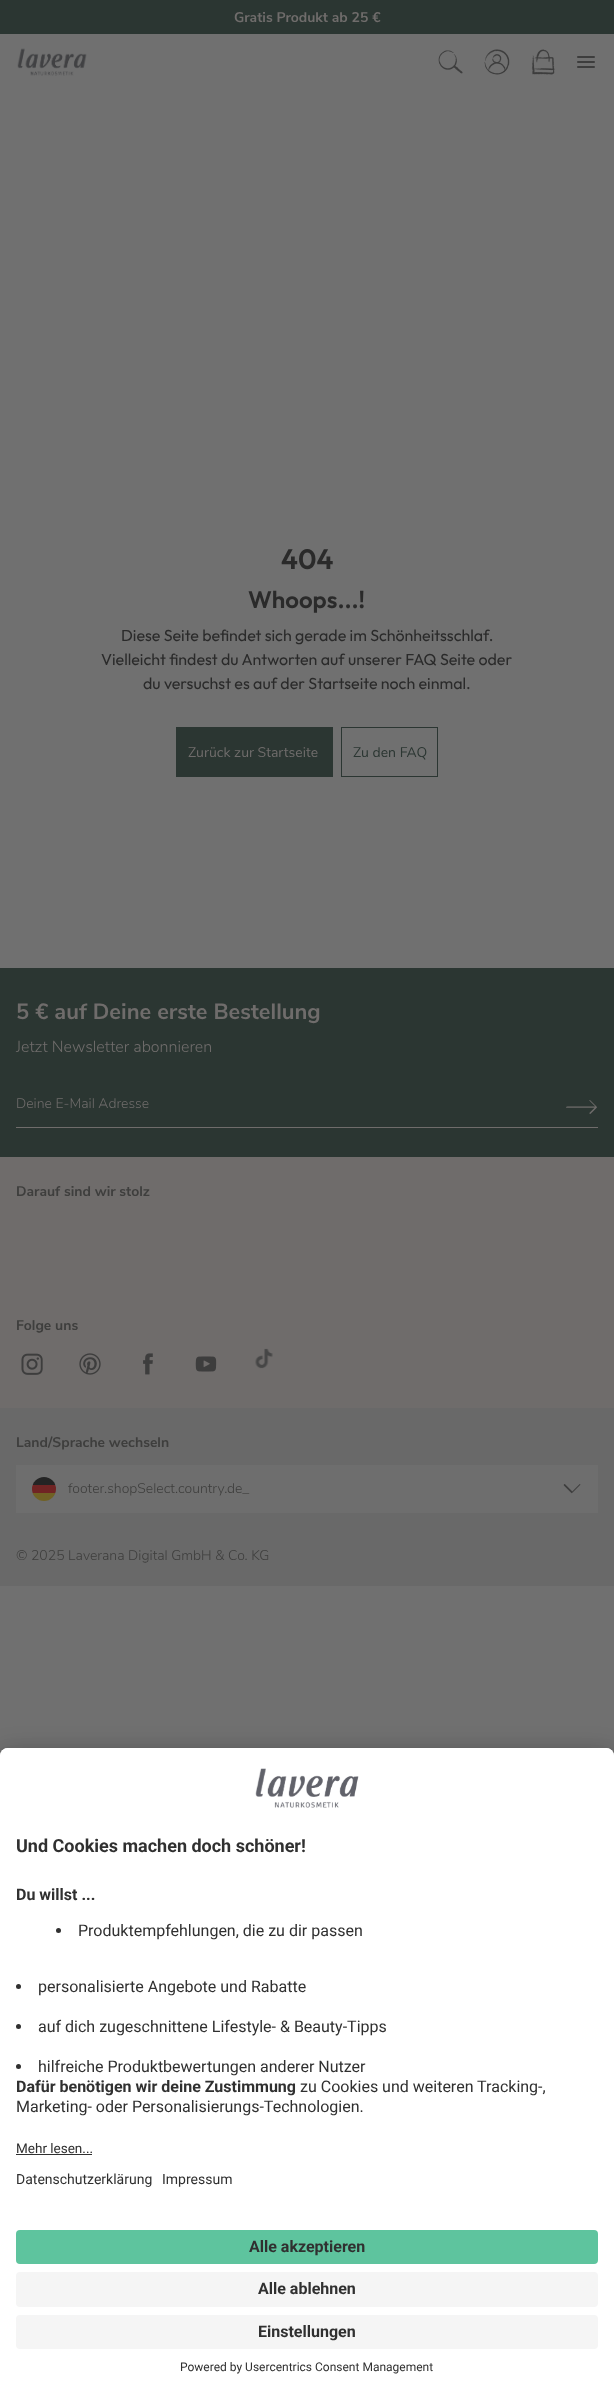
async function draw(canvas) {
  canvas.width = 614;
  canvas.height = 2391;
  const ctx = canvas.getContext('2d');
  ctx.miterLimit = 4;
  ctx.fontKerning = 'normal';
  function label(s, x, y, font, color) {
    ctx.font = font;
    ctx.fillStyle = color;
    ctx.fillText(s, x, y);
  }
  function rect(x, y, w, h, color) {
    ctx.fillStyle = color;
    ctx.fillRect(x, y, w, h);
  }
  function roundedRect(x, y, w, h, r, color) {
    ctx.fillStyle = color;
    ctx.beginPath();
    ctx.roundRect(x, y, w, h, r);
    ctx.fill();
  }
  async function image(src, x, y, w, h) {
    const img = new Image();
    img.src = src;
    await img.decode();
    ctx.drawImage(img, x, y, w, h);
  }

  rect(0, 0, 614, 2391, '#707070');
  rect(0, 0, 614, 34, '#2b3632');
  label('Gratis Produkt ab 25 €', 234, 22, 'bold 14px Nunito Sans', '#6f6c6b');
  await image('assets/img1.png', 17, 48, 70, 28);
  await image('assets/img2.png', 438, 50, 25, 24);
  await image('assets/img3.png', 484, 49, 26, 26);
  await image('assets/img4.png', 531, 49, 24, 26);
  await image('assets/img5.png', 577, 56, 18, 12);
  label('404', 281, 569, '600 28px Outfit', '#2a2a2a');
  label('Whoops...!', 248, 608, '600 24px Outfit', '#2a2a2a');
  label('Diese Seite befindet sich gerade im Schönheitsschlaf.', 121, 641, '16px Outfit', '#2a2a2a');
  label('Vielleicht findest du Antworten auf unserer FAQ Seite oder', 101, 665, '16px Outfit', '#2a2a2a');
  label('du versuchst es auf der Startseite noch einmal.', 143, 689, '16px Outfit', '#2a2a2a');
  rect(176, 727, 157, 50, '#2b3632');
  label('Zurück zur Startseite', 188, 757, '14px Nunito Sans', '#6f6c6b');
  ctx.strokeStyle = '#2b3632';
  ctx.strokeRect(341.5, 727.5, 96, 49);
  label('Zu den FAQ', 353, 757, '14px Nunito Sans', '#2b3632');
  rect(0, 968, 614, 189, '#2b3632');
  label('5 € auf Deine erste Bestellung', 16, 1019, 'bold 22px Nunito Sans', '#6f6c6b');
  label('Jetzt Newsletter abonnieren', 16, 1052, '300 16px Nunito Sans', '#6f6c6b');
  rect(16, 1127, 582, 1, '#6f6c6b');
  label('Deine E-Mail Adresse', 16, 1108, '300 14px Nunito Sans', '#6f6c6b');
  await image('assets/img6.png', 566, 1100, 31, 14);
  rect(0, 1157, 614, 251, '#6f6c6b');
  label('Darauf sind wir stolz', 16, 1196, 'bold 14px Nunito Sans', '#3e3e3d');
  label('Folge uns', 16, 1330, 'bold 14px Nunito Sans', '#3e3e3d');
  await image('assets/img7.png', 21, 1353, 22, 22);
  await image('assets/img8.png', 79, 1353, 22, 22);
  await image('assets/img9.png', 143, 1353, 10, 22);
  await image('assets/img10.png', 195, 1356, 22, 16);
  await image('assets/img11.png', 255, 1348, 18, 21);
  rect(0, 1408, 614, 178, '#696969');
  label('Land/Sprache wechseln', 16, 1447, 'bold 14px Nunito Sans', '#3e3e3d');
  rect(16, 1465, 582, 48, '#6e6e6e');
  ctx.save();
  ctx.beginPath();
  ctx.roundRect(32, 1477, 24, 24, 12);
  ctx.clip();
  rect(32, 1477, 24, 8, '#242424');
  rect(32, 1485, 24, 8, '#702424');
  rect(32, 1493, 24, 8, '#706124');
  ctx.restore();
  label('footer.shopSelect.country.de_', 68, 1493, '300 14px Nunito Sans', '#3e3e3d');
  await image('assets/img12.png', 563, 1484, 18, 10);
  label('© 2025 Laverana Digital GmbH & Co. KG', 16, 1560, '300 14px Nunito Sans', '#3e3e3d');
  ctx.fillStyle = '#0000004d';
  ctx.filter = 'blur(14px)';
  ctx.beginPath();
  ctx.roundRect(0, 1768, 614, 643, 8);
  ctx.fill();
  ctx.filter = 'none';
  ctx.fillStyle = '#00000038';
  ctx.filter = 'blur(13px)';
  ctx.beginPath();
  ctx.roundRect(0, 1753, 614, 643, 8);
  ctx.fill();
  ctx.filter = 'none';
  ctx.fillStyle = '#fff';
  ctx.beginPath();
  ctx.roundRect(0, 1748, 614, 643, [8, 8, 0, 0]);
  ctx.fill();
  ctx.beginPath();
  ctx.roundRect(0, 1748, 614, 470, [8, 8, 0, 0]);
  ctx.fill();
  await image('assets/img13.png', 255, 1768, 104, 40);
  label('Und Cookies machen doch schöner!', 16, 1852, 'bold 18px Roboto', '#303030');
  label('Du willst ...', 16, 1900, 'bold 16px Roboto', '#303030');
  ctx.beginPath();
  ctx.arc(58.5, 1930.5, 2.5, 0, 2 * Math.PI);
  ctx.fill();
  label('Produktempfehlungen, die zu dir passen', 78, 1936, '16px Roboto', '#303030');
  ctx.beginPath();
  ctx.arc(18.5, 1986.5, 2.5, 0, 2 * Math.PI);
  ctx.fill();
  label('personalisierte Angebote und Rabatte', 38, 1992, '16px Roboto', '#303030');
  ctx.beginPath();
  ctx.arc(18.5, 2026.5, 2.5, 0, 2 * Math.PI);
  ctx.fill();
  label('auf dich zugeschnittene Lifestyle- & Beauty-Tipps', 38, 2032, '16px Roboto', '#303030');
  ctx.beginPath();
  ctx.arc(18.5, 2066.5, 2.5, 0, 2 * Math.PI);
  ctx.fill();
  label('hilfreiche Produktbewertungen anderer Nutzer', 38, 2072, '16px Roboto', '#303030');
  label('Dafür benötigen wir deine Zustimmung', 16, 2092, 'bold 16px Roboto', '#303030');
  label('zu Cookies und weiteren Tracking-,', 300, 2092, '16px Roboto', '#303030');
  label('Marketing- oder Personalisierungs-Technologien.', 16, 2112, '16px Roboto', '#303030');
  label('Mehr lesen...', 16, 2153, '13.5px Roboto', '#303030');
  rect(16, 2154, 76, 1, '#303030');
  label('Datenschutzerklärung', 16, 2184, '14px Roboto', '#303030');
  label('Impressum', 162, 2184, '14px Roboto', '#303030');
  roundedRect(16, 2230, 582, 34, 4, '#5ec49e');
  label('Alle akzeptieren', 249, 2252, 'bold 16px Roboto', '#303030');
  roundedRect(16, 2272, 582, 35, 4, '#f5f5f5');
  label('Alle ablehnen', 258, 2294, 'bold 16px Roboto', '#303030');
  roundedRect(16, 2315, 582, 34, 4, '#f5f5f5');
  label('Einstellungen', 258, 2337, 'bold 16px Roboto', '#303030');
  label('Powered by Usercentrics Consent Management', 180, 2371, '12px Roboto', '#303030');
}

draw(document.querySelector('canvas'));
